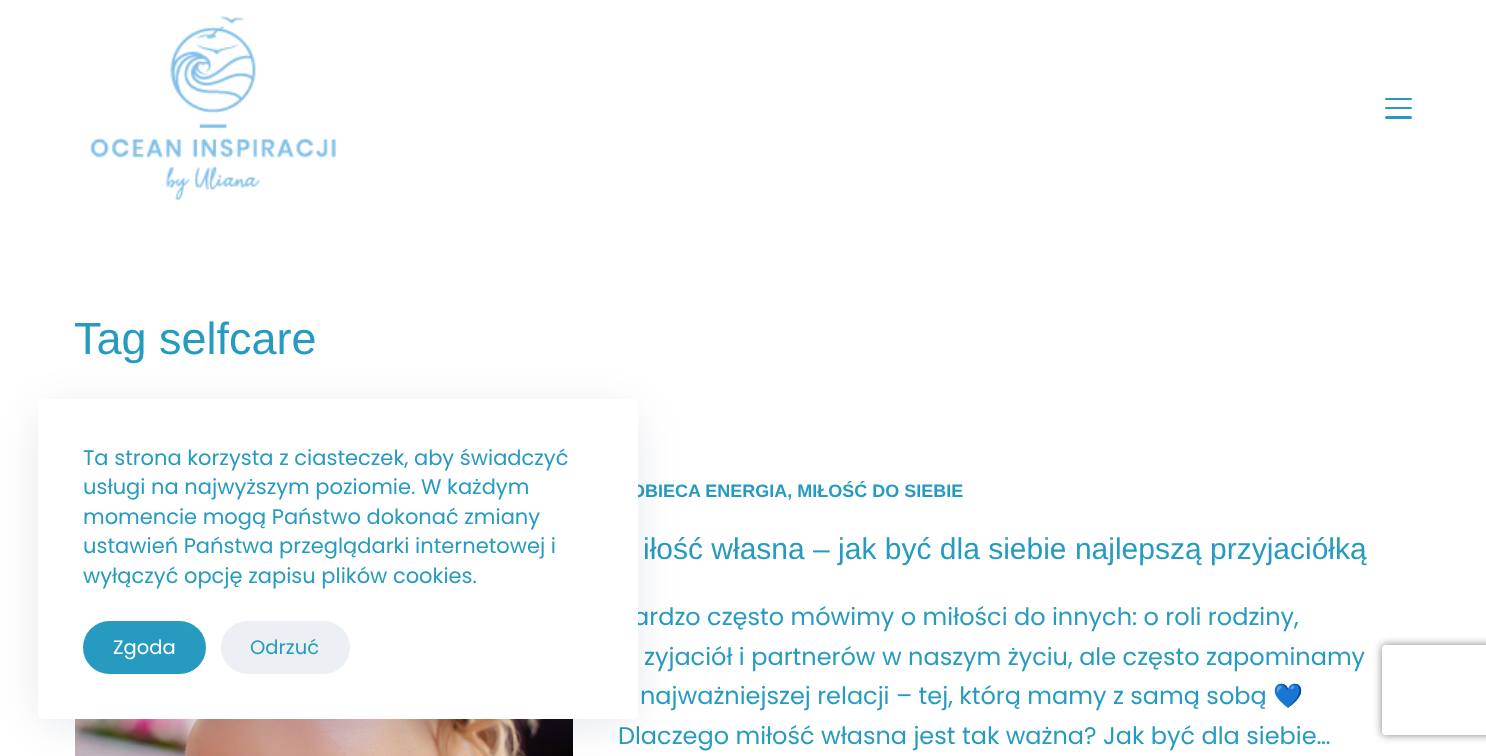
async function draw(canvas) {
  canvas.width = 1486;
  canvas.height = 756;
  const ctx = canvas.getContext('2d');
  ctx.miterLimit = 4;
  ctx.fontKerning = 'normal';
  function label(s, x, y, font, color) {
    ctx.font = font;
    ctx.fillStyle = color;
    ctx.fillText(s, x, y);
  }
  function rect(x, y, w, h, color) {
    ctx.fillStyle = color;
    ctx.fillRect(x, y, w, h);
  }
  function roundedRect(x, y, w, h, r, color) {
    ctx.fillStyle = color;
    ctx.beginPath();
    ctx.roundRect(x, y, w, h, r);
    ctx.fill();
  }
  async function image(src, x, y, w, h) {
    const img = new Image();
    img.src = src;
    await img.decode();
    ctx.drawImage(img, x, y, w, h);
  }
  let path;

  rect(0, 0, 1486, 756, '#fff');
  await image('assets/img1.png', 90, 16, 246, 184);
  roundedRect(1385, 98, 27, 2, 1, '#269bbf');
  roundedRect(1385, 107, 27, 2, 1, '#269bbf');
  roundedRect(1385, 116, 27, 3, 1.5, '#269bbf');
  label('Tag selfcare', 74, 354, '45px Liberation Sans', '#269bbf');
  await image('assets/img2.png', 75, 719, 498, 37);
  label('OBIECA ENERGIA, MIŁOŚĆ DO SIEBIE', 631, 497, 'bold 18px Liberation Sans', '#269bbf');
  label('iłość własna – jak być dla siebie najlepszą przyjaciółką', 643, 559, '30px Liberation Sans', '#269bbf');
  label('ardzo często mówimy o miłości do innych: o roli rodziny,', 633, 625, '24px Poppins', '#269bbf');
  label('zyjaciół i partnerów w naszym życiu, ale często zapominamy', 644, 665, '24px Poppins', '#269bbf');
  label('najważniejszej relacji – tej, którą mamy z samą sobą', 640, 704, '24px Poppins', '#269bbf');
  label('💙', 1273, 704, '24px Noto Color Emoji', '#269bbf');
  label('Dlaczego miłość własna jest tak ważna? Jak być dla siebie…', 618, 744, '24px Poppins', '#269bbf');
  ctx.fillStyle = '#22386526';
  ctx.filter = 'blur(22.5px)';
  ctx.beginPath();
  ctx.rect(45, 414, 585, 305);
  ctx.fill();
  ctx.filter = 'none';
  roundedRect(38, 399, 600, 320, 5, '#fff');
  label('Ta strona korzysta z ciasteczek, aby świadczyć', 83, 465, '21px Poppins', '#269bbf');
  label('usługi na najwyższym poziomie. W każdym', 83, 494, '21px Poppins', '#269bbf');
  label('momencie mogą Państwo dokonać zmiany', 83, 524, '21px Poppins', '#269bbf');
  label('ustawień Państwa przeglądarki internetowej i', 83, 553, '21px Poppins', '#269bbf');
  label('wyłączyć opcję zapisu plików cookies.', 83, 583, '21px Poppins', '#269bbf');
  roundedRect(83, 621, 123, 53, 26.5, '#269bbf');
  label('Zgoda', 113, 654, '19.5px Poppins', '#fff');
  roundedRect(221, 621, 129, 53, 26.5, '#eceff3');
  label('Odrzuć', 250, 654, '19.5px Poppins', '#269bbf');
  ctx.save();
  path = new Path2D('M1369 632H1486V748H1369ZM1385 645H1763C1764.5 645 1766 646.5 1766 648V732C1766 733.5 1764.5 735 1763 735H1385C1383.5 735 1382 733.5 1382 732V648C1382 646.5 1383.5 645 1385 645Z');
  ctx.clip(path, 'evenodd');
  ctx.fillStyle = '#808080';
  ctx.filter = 'blur(4px)';
  ctx.beginPath();
  ctx.roundRect(1382, 645, 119, 90, 3);
  ctx.fill();
  ctx.filter = 'none';
  ctx.restore();
}

draw(document.querySelector('canvas'));
